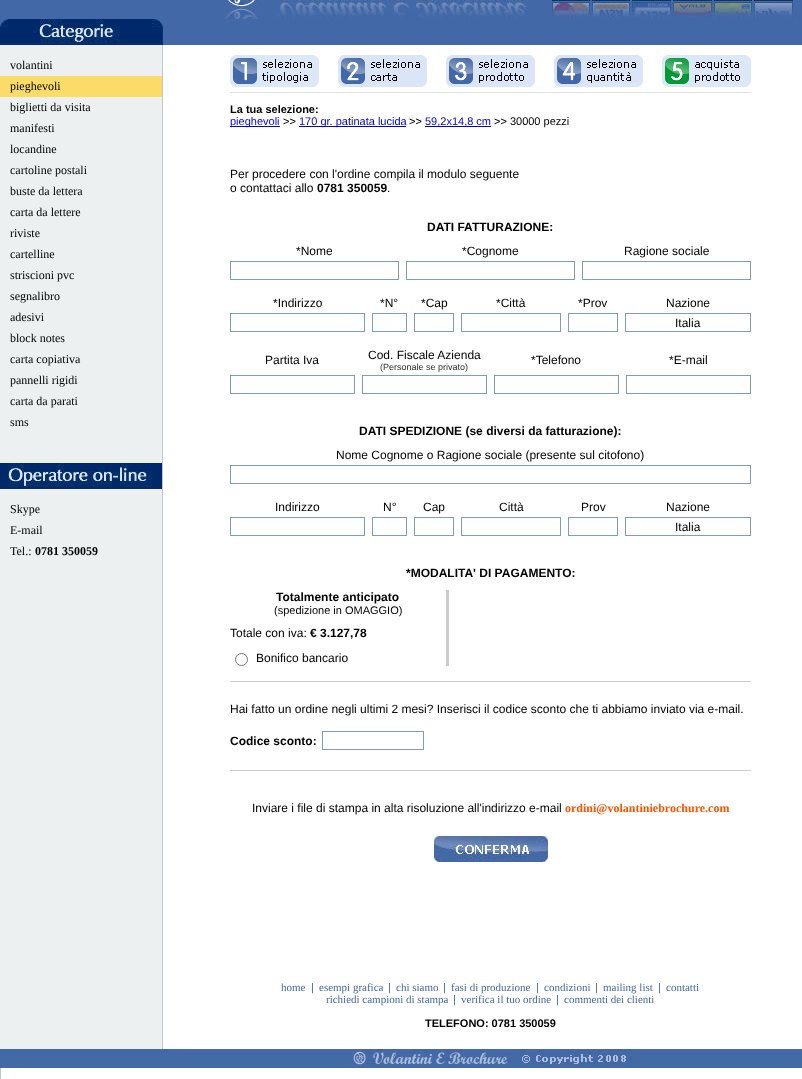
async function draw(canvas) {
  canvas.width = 802;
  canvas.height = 1079;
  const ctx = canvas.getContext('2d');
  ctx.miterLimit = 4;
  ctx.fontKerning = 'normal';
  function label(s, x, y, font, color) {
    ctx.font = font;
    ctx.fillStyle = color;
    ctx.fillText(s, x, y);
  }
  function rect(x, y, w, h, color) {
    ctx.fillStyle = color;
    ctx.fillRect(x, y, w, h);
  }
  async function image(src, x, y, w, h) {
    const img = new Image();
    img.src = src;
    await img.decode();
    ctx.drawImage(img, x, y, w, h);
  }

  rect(0, 0, 802, 1079, '#fff');
  await image('assets/img1.png', 0, 0, 802, 45);
  await image('assets/img2.png', 224, 0, 576, 19);
  await image('assets/img3.png', 0, 19, 163, 26);
  rect(0, 45, 162, 1004, '#ecf0f1');
  label('volantini', 10, 69, '12px Liberation Serif', '#000');
  rect(0, 76, 162, 21, '#fbdc68');
  label('pieghevoli', 10, 90, '12px Liberation Serif', '#000');
  label('biglietti da visita', 10, 111, '12px Liberation Serif', '#000');
  label('manifesti', 10, 132, '12px Liberation Serif', '#000');
  label('locandine', 10, 153, '12px Liberation Serif', '#000');
  label('cartoline postali', 10, 174, '12px Liberation Serif', '#000');
  label('buste da lettera', 10, 195, '12px Liberation Serif', '#000');
  label('carta da lettere', 10, 216, '12px Liberation Serif', '#000');
  label('riviste', 10, 237, '12px Liberation Serif', '#000');
  label('cartelline', 10, 258, '12px Liberation Serif', '#000');
  label('striscioni pvc', 10, 279, '12px Liberation Serif', '#000');
  label('segnalibro', 10, 300, '12px Liberation Serif', '#000');
  label('adesivi', 10, 321, '12px Liberation Serif', '#000');
  label('block notes', 10, 342, '12px Liberation Serif', '#000');
  label('carta copiativa', 10, 363, '12px Liberation Serif', '#000');
  label('pannelli rigidi', 10, 384, '12px Liberation Serif', '#000');
  label('carta da parati', 10, 405, '12px Liberation Serif', '#000');
  label('sms', 10, 426, '12px Liberation Serif', '#000');
  await image('assets/img4.png', 0, 463, 162, 26);
  label('Skype', 10, 513, '12px Liberation Serif', '#000');
  label('E-mail', 10, 534, '12px Liberation Serif', '#000');
  label('Tel.:', 10, 555, '12px Liberation Serif', '#000');
  label('0781 350059', 35, 555, 'bold 12px Liberation Serif', '#000');
  rect(162, 45, 1, 1004, '#c2c7ca');
  await image('assets/img5.png', 230, 55, 89, 32);
  await image('assets/img6.png', 338, 55, 89, 32);
  await image('assets/img7.png', 446, 55, 89, 32);
  await image('assets/img8.png', 554, 55, 89, 32);
  await image('assets/img9.png', 662, 55, 89, 32);
  rect(230, 92, 521, 1, '#dfe3e2');
  label('La tua selezione:', 230, 113, 'bold 11px Liberation Sans', '#000');
  rect(230, 126, 50, 1, '#00e');
  label('pieghevoli', 230, 125, '11px Liberation Sans', '#00e');
  label('>>', 283, 125, '11px Liberation Sans', '#000');
  rect(299, 126, 107, 1, '#00e');
  label('170 gr. patinata lucida', 299, 125, '11px Liberation Sans', '#00e');
  label('>>', 409, 125, '11px Liberation Sans', '#000');
  rect(425, 126, 66, 1, '#00e');
  label('59,2x14,8 cm', 425, 125, '11px Liberation Sans', '#00e');
  label('>> 30000 pezzi', 494, 125, '11px Liberation Sans', '#000');
  label('Per procedere con l\'ordine compila il modulo seguente', 230, 178, '12px Liberation Sans', '#000');
  label('o contattaci allo', 230, 192, '12px Liberation Sans', '#000');
  label('0781 350059', 317, 192, 'bold 12px Liberation Sans', '#000');
  label('.', 387, 192, '12px Liberation Sans', '#000');
  label('DATI FATTURAZIONE:', 427, 231, 'bold 12px Liberation Sans', '#000');
  label('*Nome', 296, 255, '12px Liberation Sans', '#000');
  label('*Cognome', 462, 255, '12px Liberation Sans', '#000');
  label('Ragione sociale', 624, 255, '12px Liberation Sans', '#000');
  ctx.strokeStyle = '#7f9db9';
  ctx.strokeRect(230.5, 261.5, 168, 18);
  ctx.strokeRect(406.5, 261.5, 168, 18);
  ctx.strokeRect(582.5, 261.5, 168, 18);
  label('*Indirizzo', 273, 307, '12px Liberation Sans', '#000');
  label('*N°', 380, 307, '12px Liberation Sans', '#000');
  label('*Cap', 421, 307, '12px Liberation Sans', '#000');
  label('*Città', 496, 307, '12px Liberation Sans', '#000');
  label('*Prov', 578, 307, '12px Liberation Sans', '#000');
  label('Nazione', 666, 307, '12px Liberation Sans', '#000');
  ctx.strokeRect(230.5, 313.5, 134, 18);
  ctx.strokeRect(372.5, 313.5, 34, 18);
  ctx.strokeRect(414.5, 313.5, 39, 18);
  ctx.strokeRect(461.5, 313.5, 99, 18);
  ctx.strokeRect(568.5, 313.5, 49, 18);
  ctx.strokeRect(625.5, 313.5, 125, 18);
  label('Italia', 675, 327, '12px Liberation Sans', '#000');
  label('Partita Iva', 265, 364, '12px Liberation Sans', '#000');
  label('Cod. Fiscale Azienda', 368, 359, '12px Liberation Sans', '#000');
  label('(Personale se privato)', 380, 370, '9px Liberation Sans', '#2d2e2c');
  label('*Telefono', 531, 364, '12px Liberation Sans', '#000');
  label('*E-mail', 669, 364, '12px Liberation Sans', '#000');
  ctx.strokeRect(230.5, 375.5, 124, 18);
  ctx.strokeRect(362.5, 375.5, 124, 18);
  ctx.strokeRect(494.5, 375.5, 124, 18);
  ctx.strokeRect(626.5, 375.5, 124, 18);
  label('DATI SPEDIZIONE (se diversi da fatturazione):', 359, 435, 'bold 12px Liberation Sans', '#000');
  label('Nome Cognome o Ragione sociale (presente sul citofono)', 336, 459, '12px Liberation Sans', '#000');
  ctx.strokeRect(230.5, 465.5, 520, 18);
  label('Indirizzo', 275, 511, '12px Liberation Sans', '#000');
  label('N°', 383, 511, '12px Liberation Sans', '#000');
  label('Cap', 423, 511, '12px Liberation Sans', '#000');
  label('Città', 499, 511, '12px Liberation Sans', '#000');
  label('Prov', 581, 511, '12px Liberation Sans', '#000');
  label('Nazione', 666, 511, '12px Liberation Sans', '#000');
  ctx.strokeRect(230.5, 517.5, 134, 18);
  ctx.strokeRect(372.5, 517.5, 34, 18);
  ctx.strokeRect(414.5, 517.5, 39, 18);
  ctx.strokeRect(461.5, 517.5, 99, 18);
  ctx.strokeRect(568.5, 517.5, 49, 18);
  ctx.strokeRect(625.5, 517.5, 125, 18);
  label('Italia', 675, 531, '12px Liberation Sans', '#000');
  label('*MODALITA\' DI PAGAMENTO:', 406, 577, 'bold 12px Liberation Sans', '#000');
  label('Totalmente anticipato', 276, 601, 'bold 12px Liberation Sans', '#000');
  label('(spedizione in OMAGGIO)', 274, 614, '11px Liberation Sans', '#000');
  label('Totale con iva:', 230, 637, '12px Liberation Sans', '#000');
  label('€ 3.127,78', 310, 637, 'bold 12px Liberation Sans', '#000');
  ctx.beginPath();
  ctx.arc(241.5, 659.5, 6, 0, 2 * Math.PI);
  ctx.strokeStyle = '#767676';
  ctx.stroke();
  label('Bonifico bancario', 256, 662, '12px Liberation Sans', '#000');
  rect(446, 590, 3, 76, '#ccc');
  rect(230, 681, 521, 1, '#cdcdcd');
  label('Hai fatto un ordine negli ultimi 2 mesi? Inserisci il codice sconto che ti abbiamo inviato via e-mail.', 230, 713, '12px Liberation Sans', '#000');
  label('Codice sconto:', 230, 745, 'bold 12px Liberation Sans', '#000');
  ctx.strokeStyle = '#7f9db9';
  ctx.strokeRect(322.5, 731.5, 101, 18);
  rect(230, 770, 521, 1, '#cdcdcd');
  label('Inviare i file di stampa in alta risoluzione all\'indirizzo e-mail', 252, 812, '12px Liberation Sans', '#000');
  label('ordini@volantiniebrochure.com', 565, 812, 'bold 12px Liberation Serif', '#ff5300');
  await image('assets/img10.png', 434, 836, 114, 26);
  label('home', 281, 991, '11px Liberation Serif', '#4368a7');
  label('|', 311, 991, '11px Liberation Sans', '#4368a7');
  label('esempi grafica', 319, 991, '11px Liberation Serif', '#4368a7');
  label('|', 388, 991, '11px Liberation Sans', '#4368a7');
  label('chi siamo', 396, 991, '11px Liberation Serif', '#4368a7');
  label('|', 443, 991, '11px Liberation Sans', '#4368a7');
  label('fasi di produzione', 451, 991, '11px Liberation Serif', '#4368a7');
  label('|', 536, 991, '11px Liberation Sans', '#4368a7');
  label('condizioni', 544, 991, '11px Liberation Serif', '#4368a7');
  label('|', 595, 991, '11px Liberation Sans', '#4368a7');
  label('mailing list', 603, 991, '11px Liberation Serif', '#4368a7');
  label('|', 658, 991, '11px Liberation Sans', '#4368a7');
  label('contatti', 666, 991, '11px Liberation Serif', '#4368a7');
  label('richiedi campioni di stampa', 326, 1003, '11px Liberation Serif', '#4368a7');
  label('|', 453, 1003, '11px Liberation Sans', '#4368a7');
  label('verifica il tuo ordine', 461, 1003, '11px Liberation Serif', '#4368a7');
  label('|', 556, 1003, '11px Liberation Sans', '#4368a7');
  label('commenti dei clienti', 564, 1003, '11px Liberation Serif', '#4368a7');
  label('TELEFONO: 0781 350059', 425, 1027, 'bold 11px Liberation Sans', '#000');
  await image('assets/img11.png', 0, 1049, 802, 19);
  rect(0, 1068, 1, 11, '#c2c7ca');
}

draw(document.querySelector('canvas'));
